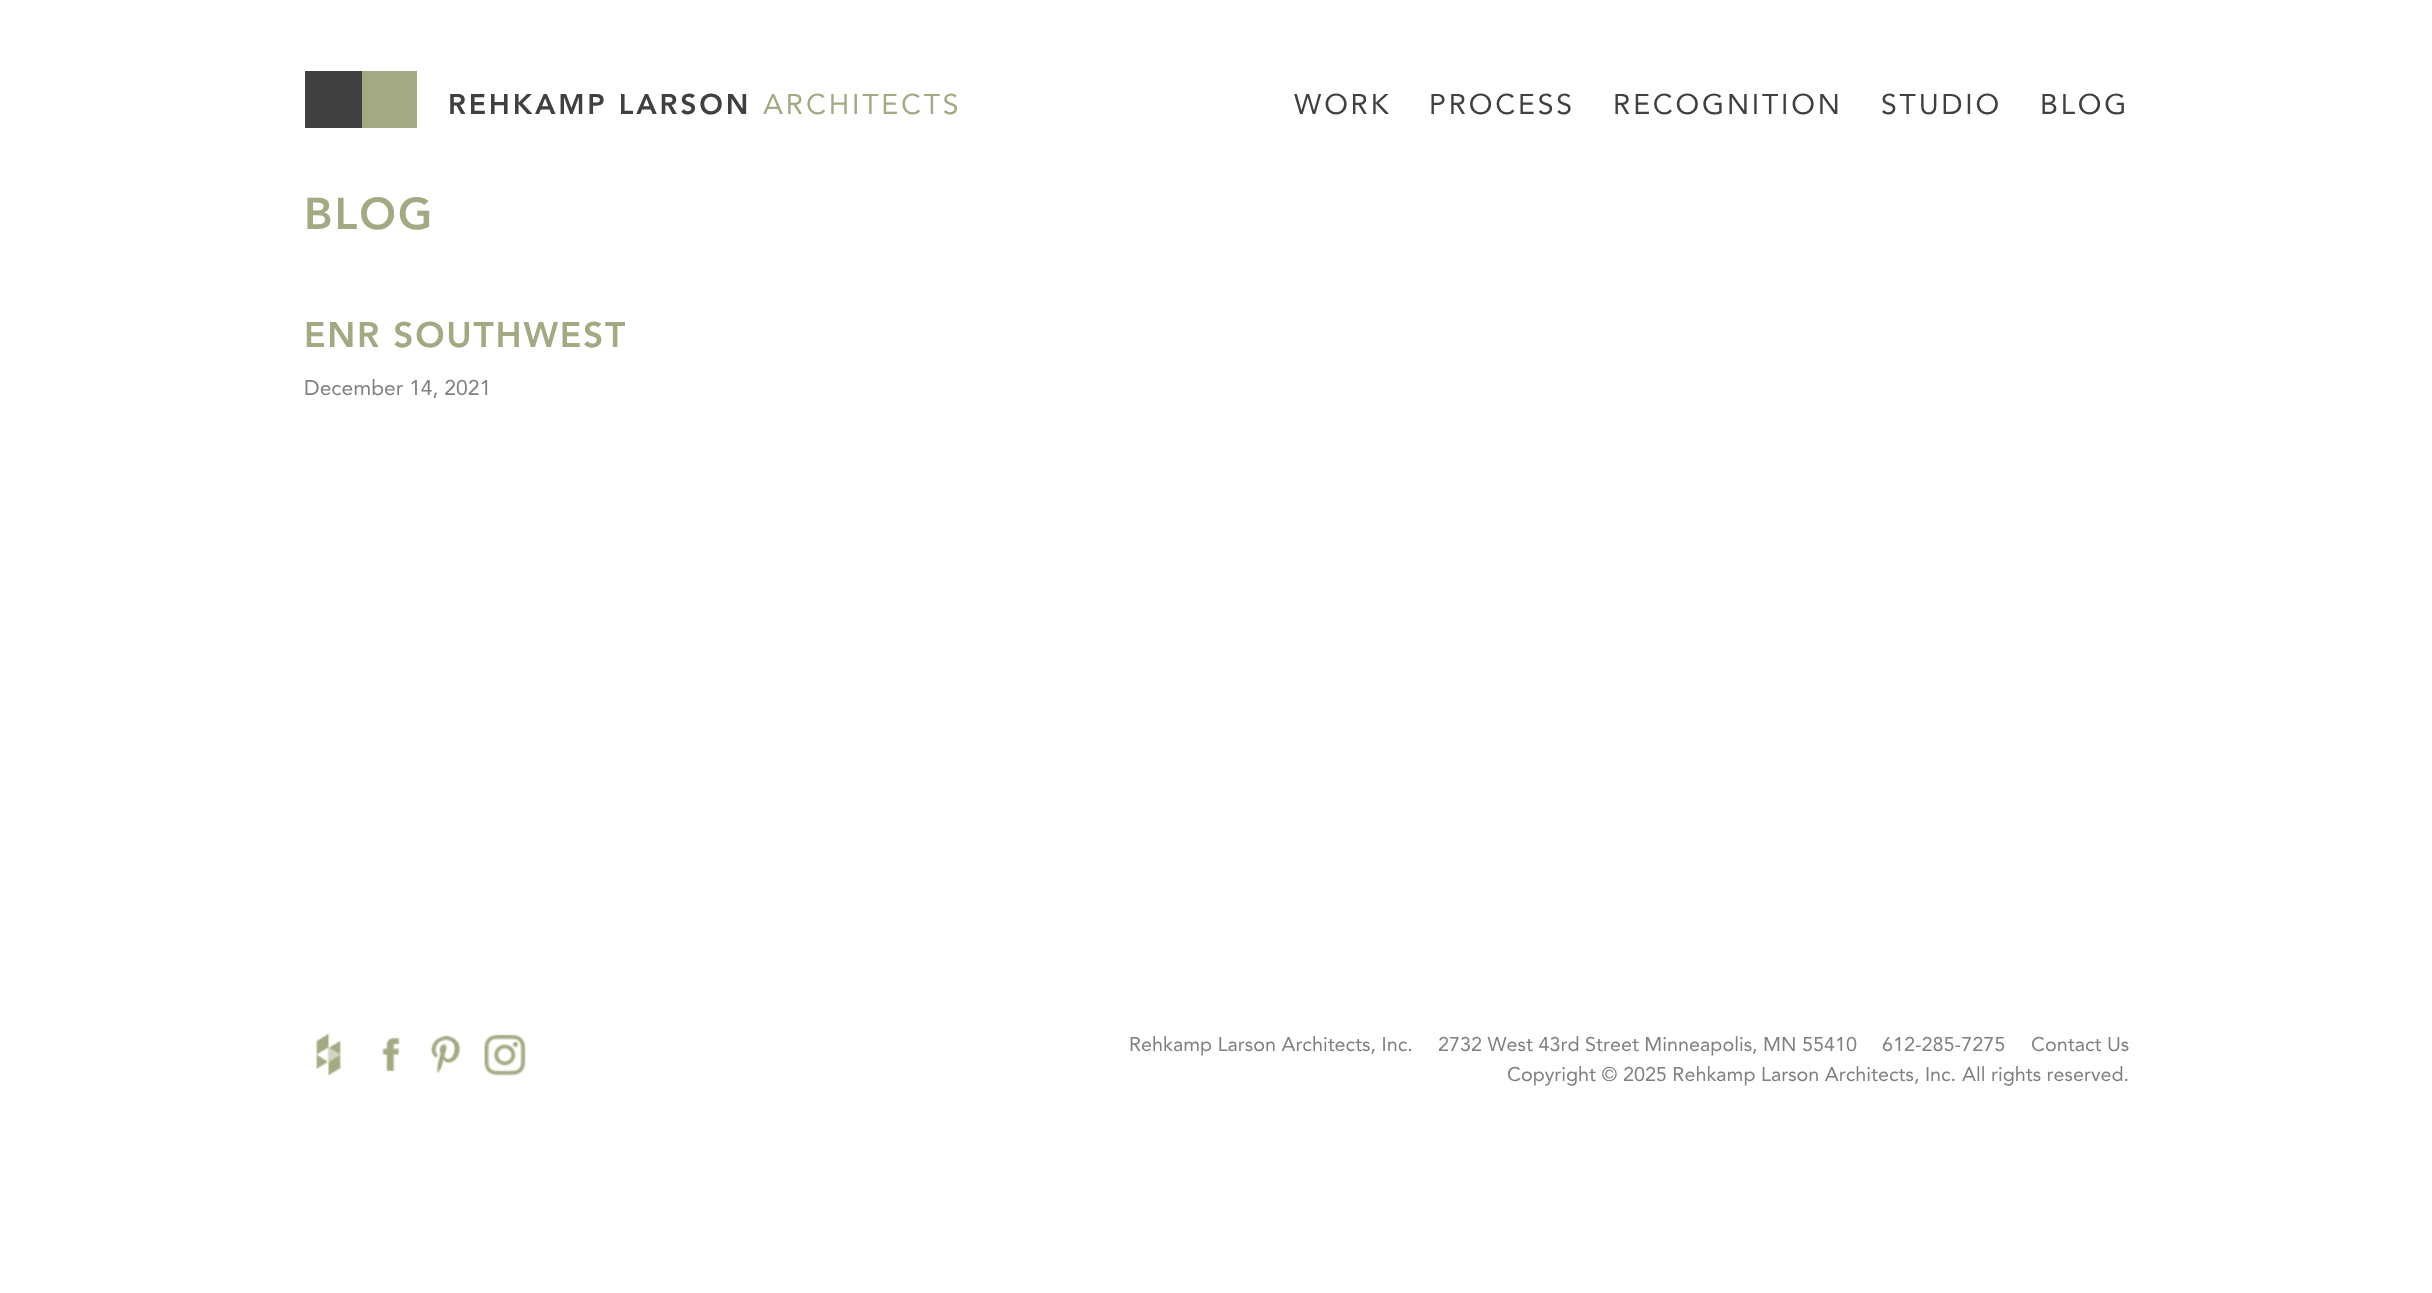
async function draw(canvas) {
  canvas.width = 2432;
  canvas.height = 1293;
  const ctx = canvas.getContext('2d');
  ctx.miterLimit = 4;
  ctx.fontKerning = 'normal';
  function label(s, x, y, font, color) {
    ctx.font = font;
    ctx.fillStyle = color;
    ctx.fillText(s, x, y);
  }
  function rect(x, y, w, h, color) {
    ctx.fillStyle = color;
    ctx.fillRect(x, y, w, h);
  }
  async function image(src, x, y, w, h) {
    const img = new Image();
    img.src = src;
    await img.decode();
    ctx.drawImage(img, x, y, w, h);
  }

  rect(0, 0, 2432, 1293, '#fff');
  rect(305, 71, 57, 57, '#404040');
  rect(362, 71, 55, 57, '#a3aa83');
  ctx.letterSpacing = '2.8px';
  label('REHKAMP LARSON', 448, 114, '28.4px "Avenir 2"', '#404040');
  label('ARCHITECTS', 763, 114, '28.4px Avenir', '#a3aa83');
  label('WORK', 1294, 114, '28.4px Avenir', '#404040');
  label('PROCESS', 1429, 114, '28.4px Avenir', '#404040');
  label('RECOGNITION', 1613, 114, '28.4px Avenir', '#404040');
  label('STUDIO', 1881, 114, '28.4px Avenir', '#404040');
  label('BLOG', 2040, 114, '28.4px Avenir', '#404040');
  ctx.letterSpacing = '2px';
  label('BLOG', 304, 229, '44px "Avenir 2"', '#a3aa83');
  ctx.letterSpacing = '1.75px';
  label('ENR SOUTHWEST', 304, 347, '35.25px "Avenir 2"', '#a3aa83');
  ctx.letterSpacing = '0px';
  label('December 14, 2021', 304, 395, '21.1px Avenir', '#808080');
  await image('assets/img1.png', 316, 1033, 25, 43);
  await image('assets/img2.png', 382, 1037, 18, 35);
  await image('assets/img3.png', 430, 1034, 31, 39);
  await image('assets/img4.png', 484, 1034, 42, 42);
  label('Rehkamp Larson Architects, Inc.', 1129, 1051, '19.8px Avenir', '#808080');
  label('2732 West 43rd Street Minneapolis, MN 55410', 1438, 1051, '19.8px Avenir', '#808080');
  label('612-285-7275', 1882, 1051, '19.8px Avenir', '#808080');
  label('Contact Us', 2031, 1051, '19.8px Avenir', '#808080');
  label('Copyright © 2025 Rehkamp Larson Architects, Inc.', 1507, 1081, '19.8px Avenir', '#808080');
  label('All rights reserved.', 1962, 1081, '19.8px Avenir', '#808080');
}

draw(document.querySelector('canvas'));
